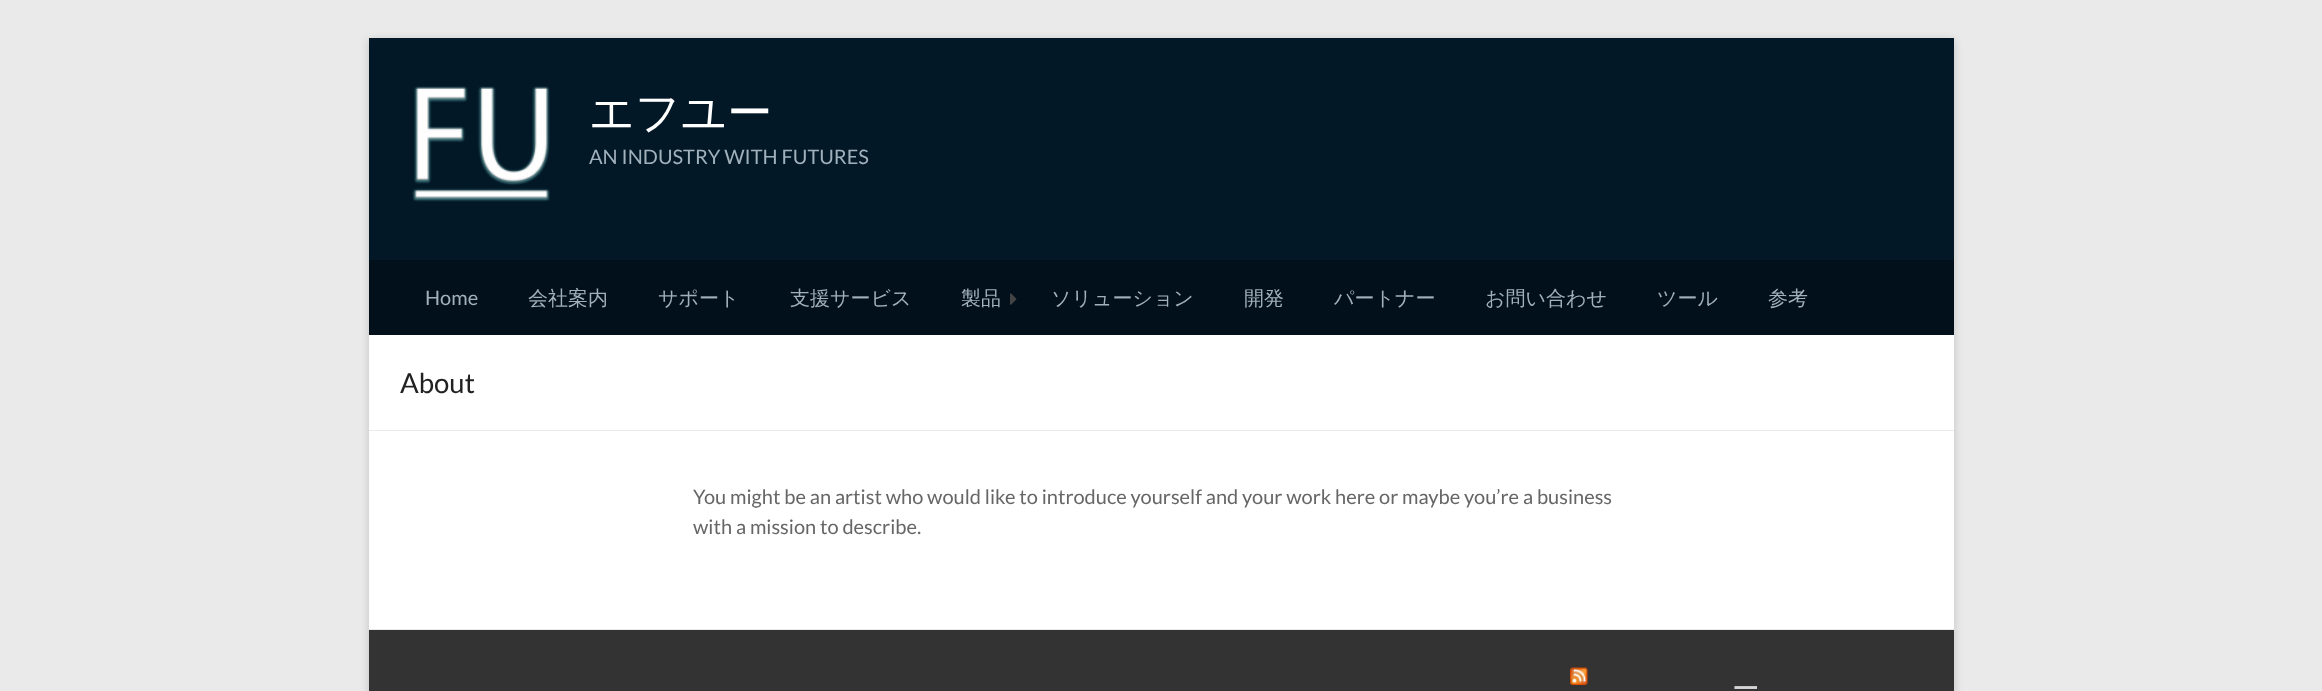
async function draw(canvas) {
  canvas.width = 2322;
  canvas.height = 691;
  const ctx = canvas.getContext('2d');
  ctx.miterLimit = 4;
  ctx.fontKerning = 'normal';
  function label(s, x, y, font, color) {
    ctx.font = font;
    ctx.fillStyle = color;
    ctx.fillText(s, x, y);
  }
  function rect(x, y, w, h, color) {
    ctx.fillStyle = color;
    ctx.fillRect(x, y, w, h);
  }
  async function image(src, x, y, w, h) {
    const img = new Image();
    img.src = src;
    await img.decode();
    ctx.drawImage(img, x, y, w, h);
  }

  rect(0, 0, 2322, 691, '#eaeaea');
  ctx.fillStyle = '#6464644d';
  ctx.filter = 'blur(4px)';
  ctx.beginPath();
  ctx.rect(369, 40, 1585, 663);
  ctx.fill();
  ctx.filter = 'none';
  rect(369, 335, 1585, 294, '#fff');
  rect(369, 38, 1585, 222, '#021827');
  await image('assets/img1.png', 412, 86, 138, 116);
  label('エフユー', 589, 128, '500 45px WenQuanYi Zen Hei', '#fff');
  label('AN INDUSTRY WITH FUTURES', 589, 164, '20px Lato', '#a1b1bc');
  rect(369, 260, 1585, 75, '#01101b');
  label('Home', 425, 305, '20px Lato', '#a1b1bc');
  label('会社案内', 528, 305, '500 20px WenQuanYi Zen Hei', '#a1b1bc');
  label('サポート', 658, 305, '500 20px WenQuanYi Zen Hei', '#a1b1bc');
  label('支援サービス', 790, 305, '500 20px WenQuanYi Zen Hei', '#a1b1bc');
  label('製品', 961, 305, '500 20px WenQuanYi Zen Hei', '#a1b1bc');
  await image('assets/img2.png', 1010, 293, 7, 12);
  label('ソリューション', 1051, 305, '500 20px WenQuanYi Zen Hei', '#a1b1bc');
  label('開発', 1244, 305, '500 20px WenQuanYi Zen Hei', '#a1b1bc');
  label('パートナー', 1334, 305, '500 20px WenQuanYi Zen Hei', '#a1b1bc');
  label('お問い合わせ', 1485, 305, '500 20px WenQuanYi Zen Hei', '#a1b1bc');
  label('ツール', 1657, 305, '500 20px WenQuanYi Zen Hei', '#a1b1bc');
  label('参考', 1768, 305, '500 20px WenQuanYi Zen Hei', '#a1b1bc');
  rect(369, 430, 1585, 1, '#eaeaea');
  label('About', 400, 393, '27.5px Lato', '#222');
  label('You might be an artist who would like to introduce yourself and your work here or maybe you’re a business', 693, 504, '20px Lato', '#666');
  label('with a mission to describe.', 693, 534, '20px Lato', '#666');
  rect(369, 630, 1585, 61, '#333');
  rect(369, 629, 1585, 1, '#eaeaea');
  await image('assets/img3.png', 1570, 667, 18, 18);
  label('ー', 1732, 698, '500 27.5px WenQuanYi Zen Hei', '#d5d5d5');
}

draw(document.querySelector('canvas'));
